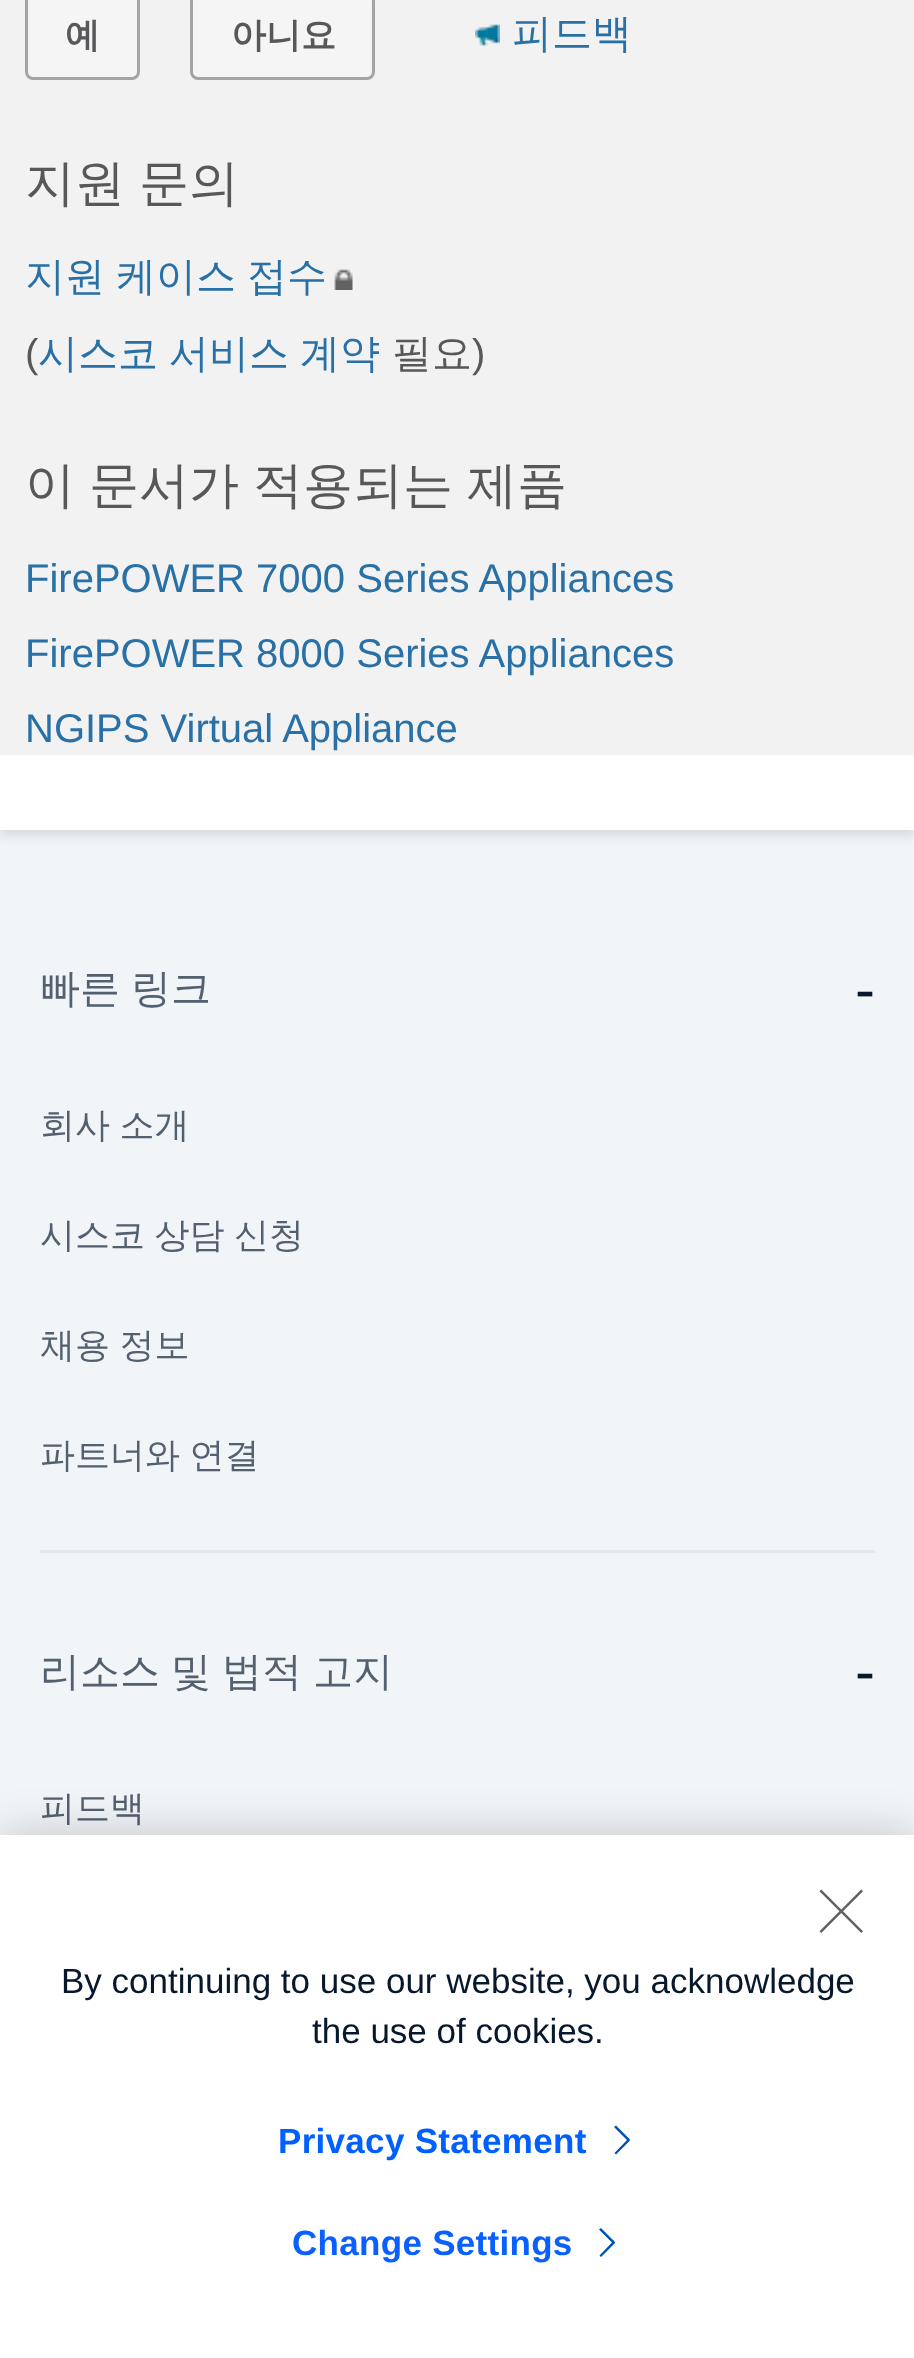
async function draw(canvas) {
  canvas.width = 914;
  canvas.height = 2358;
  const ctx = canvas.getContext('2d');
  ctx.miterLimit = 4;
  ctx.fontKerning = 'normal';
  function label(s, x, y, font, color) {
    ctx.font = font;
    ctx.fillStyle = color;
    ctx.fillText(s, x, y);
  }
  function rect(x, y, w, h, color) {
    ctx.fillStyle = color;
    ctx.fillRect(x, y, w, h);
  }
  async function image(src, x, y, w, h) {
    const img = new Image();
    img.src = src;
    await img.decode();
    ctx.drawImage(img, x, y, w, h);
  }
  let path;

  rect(0, 0, 914, 2358, '#f2f5f7');
  ctx.fillStyle = '#0000001f';
  ctx.filter = 'blur(6px)';
  ctx.beginPath();
  ctx.rect(0, -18, 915, 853);
  ctx.fill();
  ctx.filter = 'none';
  rect(0, 755, 914, 75, '#fff');
  rect(0, 0, 914, 755, '#f2f2f2');
  ctx.fillStyle = '#f5f5f5';
  ctx.beginPath();
  ctx.roundRect(26.5, -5.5, 112, 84, 6.5);
  ctx.fill();
  ctx.strokeStyle = '#a4a4a4';
  ctx.lineWidth = 3;
  ctx.stroke();
  label('예', 65, 47, 'bold 35px WenQuanYi Zen Hei', '#58585b');
  ctx.fillStyle = '#f5f5f5';
  ctx.beginPath();
  ctx.roundRect(191.5, -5.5, 182, 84, 6.5);
  ctx.fill();
  ctx.stroke();
  label('아니요', 231, 47, 'bold 35px WenQuanYi Zen Hei', '#58585b');
  await image('assets/img1.png', 475, 24, 25, 22);
  label('피드백', 512, 47, '500 40px WenQuanYi Zen Hei', '#2970a6');
  ctx.wordSpacing = '-1px';
  label('지원 문의', 25, 200, '500 50px WenQuanYi Zen Hei', '#58585b');
  label('지원 케이스 접수', 25, 290, '500 40px WenQuanYi Zen Hei', '#2970a6');
  await image('assets/img2.png', 334, 269, 19, 21);
  ctx.wordSpacing = '0px';
  label('(', 25, 367, '40px Liberation Sans', '#58585b');
  ctx.wordSpacing = '-1px';
  label('시스코 서비스 계약', 38, 367, '500 40px WenQuanYi Zen Hei', '#2970a6');
  ctx.wordSpacing = '0px';
  label('필요', 392, 367, '500 40px WenQuanYi Zen Hei', '#58585b');
  label(')', 472, 367, '40px Liberation Sans', '#58585b');
  ctx.wordSpacing = '-1px';
  label('이 문서가 적용되는 제품', 25, 502, '500 50px WenQuanYi Zen Hei', '#58585b');
  ctx.wordSpacing = '0px';
  label('FirePOWER 7000 Series Appliances', 25, 592, '40px Liberation Sans', '#2970a6');
  label('FirePOWER 8000 Series Appliances', 25, 667, '40px Liberation Sans', '#2970a6');
  label('NGIPS Virtual Appliance', 25, 742, '40px Liberation Sans', '#2970a6');
  ctx.wordSpacing = '-1px';
  label('빠른 링크', 40, 1002, '500 40px WenQuanYi Zen Hei', '#536070');
  ctx.wordSpacing = '0px';
  label('-', 855, 1010, '60px Liberation Sans', '#07182d');
  ctx.wordSpacing = '-1px';
  label('회사 소개', 40, 1137, '500 35px WenQuanYi Zen Hei', '#536070');
  label('시스코 상담 신청', 40, 1247, '500 35px WenQuanYi Zen Hei', '#536070');
  label('채용 정보', 40, 1357, '500 35px WenQuanYi Zen Hei', '#536070');
  label('파트너와 연결', 40, 1467, '500 35px WenQuanYi Zen Hei', '#536070');
  rect(40, 1550, 835, 3, '#e6e7e8');
  label('리소스 및 법적 고지', 40, 1685, '500 40px WenQuanYi Zen Hei', '#536070');
  ctx.wordSpacing = '0px';
  label('-', 855, 1692, '60px Liberation Sans', '#07182d');
  label('피드백', 40, 1820, '500 35px WenQuanYi Zen Hei', '#536070');
  ctx.fillStyle = '#00000033';
  ctx.filter = 'blur(22.5px)';
  ctx.beginPath();
  ctx.rect(0, 1835, 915, 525);
  ctx.fill();
  ctx.filter = 'none';
  rect(0, 1835, 914, 523, '#fff');
  await image('assets/img3.png', 819, 1889, 44, 44);
  label('By continuing to use our website, you acknowledge', 61, 1993, '35px Liberation Sans', '#07182d');
  label('the use of cookies.', 312, 2043, '35px Liberation Sans', '#07182d');
  ctx.letterSpacing = '0.3px';
  label('Privacy Statement', 278, 2153, 'bold 35px Liberation Sans', '#0060ff');
  ctx.fillStyle = '#0051af';
  path = new Path2D('M616 2154.5L614.5 2153L627 2140L614 2127L616 2125.5L627.5 2137C628 2137.5 631 2139.5 629.5 2141Z');
  ctx.fill(path);
  label('Change Settings', 292, 2255, 'bold 35px Liberation Sans', '#0a60ff');
  ctx.fillStyle = '#0051af';
  path = new Path2D('M601 2257L599.5 2255.5L612 2242.5L599 2229.5L601 2228L612.5 2239.5C613 2240 616 2242 614.5 2243.5Z');
  ctx.fill(path);
}

draw(document.querySelector('canvas'));
